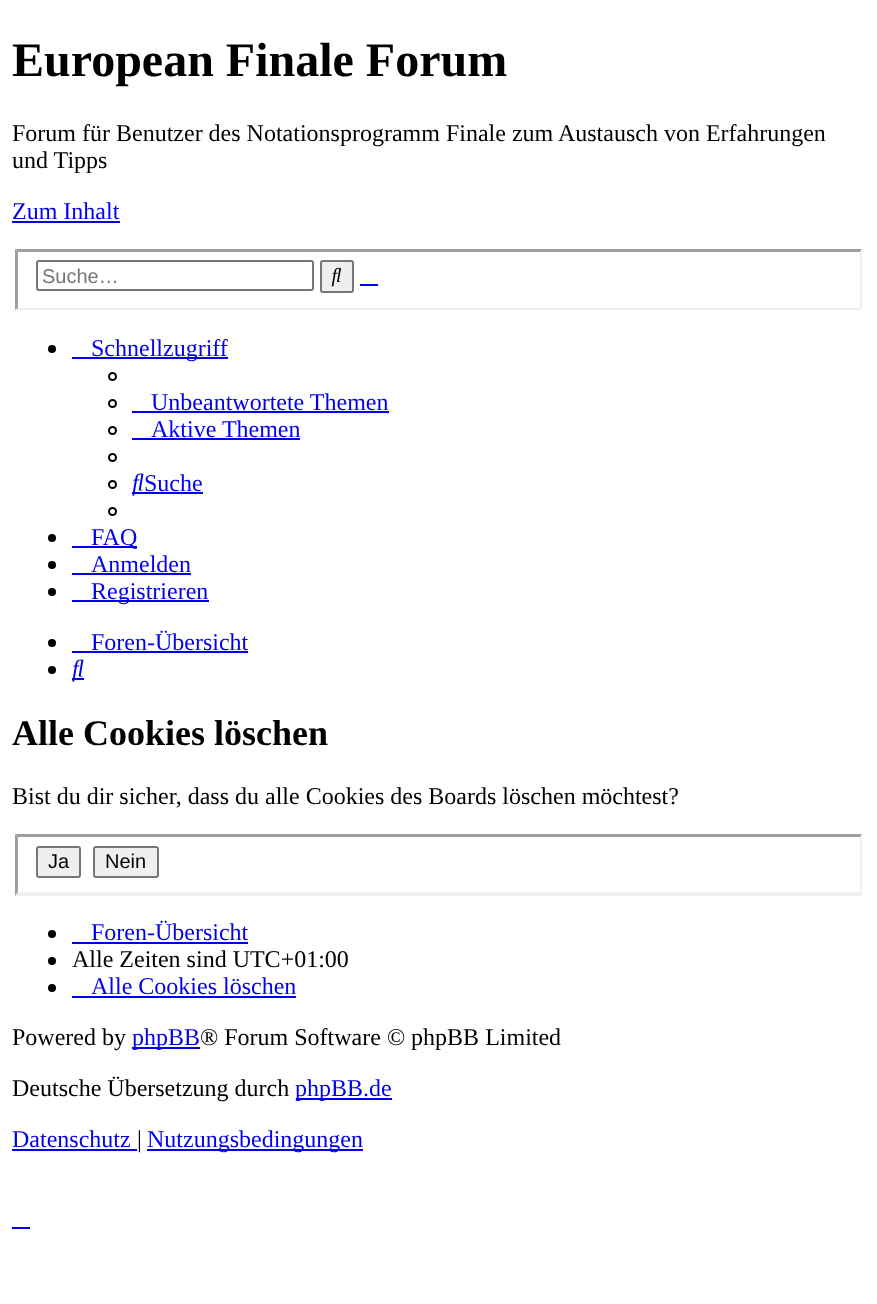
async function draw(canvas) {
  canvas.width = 877;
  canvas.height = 1304;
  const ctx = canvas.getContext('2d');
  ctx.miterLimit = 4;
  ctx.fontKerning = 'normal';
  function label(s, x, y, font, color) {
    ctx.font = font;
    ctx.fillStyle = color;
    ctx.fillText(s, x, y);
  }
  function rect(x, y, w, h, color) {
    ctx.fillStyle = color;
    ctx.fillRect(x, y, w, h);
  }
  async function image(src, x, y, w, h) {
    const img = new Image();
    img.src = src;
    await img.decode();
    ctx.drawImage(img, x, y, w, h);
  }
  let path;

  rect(0, 0, 877, 1304, '#fff');
  label('European Finale Forum', 12, 76, 'bold 48px Liberation Serif', '#000');
  label('Forum für Benutzer des Notationsprogramm Finale zum Austausch von Erfahrungen', 12, 141, '24px Liberation Serif', '#000');
  label('und Tipps', 12, 168, '24px Liberation Serif', '#000');
  label('Zum Inhalt', 12, 219, '24px Liberation Serif', '#00e');
  rect(12, 221, 108, 2, '#00e');
  ctx.fillStyle = '#9f9f9f';
  path = new Path2D('M15 249H862L860 252H18Z');
  ctx.fill(path);
  ctx.fillStyle = '#efefef';
  path = new Path2D('M862 249V310L860 308V252Z');
  ctx.fill(path);
  path = new Path2D('M862 310H15L18 308H860Z');
  ctx.fill(path);
  ctx.fillStyle = '#9f9f9f';
  path = new Path2D('M15 310V249L18 252V308Z');
  ctx.fill(path);
  ctx.beginPath();
  ctx.roundRect(37, 261, 276, 29, 2);
  ctx.strokeStyle = '#767676';
  ctx.lineWidth = 2;
  ctx.stroke();
  label('Suche…', 42, 283, '20px Liberation Sans', '#757575');
  ctx.fillStyle = '#efefef';
  ctx.beginPath();
  ctx.roundRect(321, 261, 32, 31, 2);
  ctx.fill();
  ctx.stroke();
  await image('assets/img1.png', 331, 267, 10, 20);
  rect(360, 284, 18, 2, '#00e');
  ctx.fillStyle = '#000';
  ctx.beginPath();
  ctx.arc(52, 349, 4, 0, 2 * Math.PI);
  ctx.fill();
  rect(72, 357, 156, 2, '#00e');
  label('Schnellzugriff', 91, 356, '24px Liberation Serif', '#00e');
  ctx.beginPath();
  ctx.arc(112.5, 376.5, 3.5, 0, 2 * Math.PI);
  ctx.strokeStyle = '#000';
  ctx.stroke();
  ctx.beginPath();
  ctx.arc(112.5, 403.5, 3.5, 0, 2 * Math.PI);
  ctx.stroke();
  label('Unbeantwortete Themen', 151, 410, '24px Liberation Serif', '#00e');
  rect(132, 411, 257, 2, '#00e');
  ctx.beginPath();
  ctx.arc(112.5, 430.5, 3.5, 0, 2 * Math.PI);
  ctx.stroke();
  label('Aktive Themen', 151, 437, '24px Liberation Serif', '#00e');
  rect(132, 438, 168, 2, '#00e');
  ctx.beginPath();
  ctx.arc(112.5, 457.5, 3.5, 0, 2 * Math.PI);
  ctx.stroke();
  ctx.beginPath();
  ctx.arc(112.5, 484.5, 3.5, 0, 2 * Math.PI);
  ctx.stroke();
  rect(132, 492, 71, 2, '#00e');
  await image('assets/img2.png', 132, 473, 12, 23);
  label('Suche', 144, 491, '24px Liberation Serif', '#00e');
  ctx.beginPath();
  ctx.arc(112.5, 511.5, 3.5, 0, 2 * Math.PI);
  ctx.stroke();
  ctx.fillStyle = '#000';
  ctx.beginPath();
  ctx.arc(52, 538, 4, 0, 2 * Math.PI);
  ctx.fill();
  rect(72, 546, 65, 2, '#00e');
  label('FAQ', 91, 545, '24px Liberation Serif', '#00e');
  ctx.fillStyle = '#000';
  ctx.beginPath();
  ctx.arc(52, 565, 4, 0, 2 * Math.PI);
  ctx.fill();
  label('Anmelden', 91, 572, '24px Liberation Serif', '#00e');
  rect(72, 573, 119, 2, '#00e');
  ctx.fillStyle = '#000';
  ctx.beginPath();
  ctx.arc(52, 592, 4, 0, 2 * Math.PI);
  ctx.fill();
  rect(72, 600, 137, 2, '#00e');
  label('Registrieren', 91, 599, '24px Liberation Serif', '#00e');
  ctx.fillStyle = '#000';
  ctx.beginPath();
  ctx.arc(52, 643, 4, 0, 2 * Math.PI);
  ctx.fill();
  label('Foren-Übersicht', 91, 650, '24px Liberation Serif', '#00e');
  rect(72, 651, 176, 2, '#00e');
  ctx.fillStyle = '#000';
  ctx.beginPath();
  ctx.arc(52, 670, 4, 0, 2 * Math.PI);
  ctx.fill();
  rect(72, 678, 12, 2, '#00e');
  await image('assets/img2.png', 72, 659, 12, 23);
  label('Alle Cookies löschen', 12, 745, 'bold 36px Liberation Serif', '#000');
  label('Bist du dir sicher, dass du alle Cookies des Boards löschen möchtest?', 12, 804, '24px Liberation Serif', '#000');
  ctx.fillStyle = '#9f9f9f';
  path = new Path2D('M15 834H862L860 837H18Z');
  ctx.fill(path);
  ctx.fillStyle = '#efefef';
  path = new Path2D('M862 834V896L860 892V837Z');
  ctx.fill(path);
  path = new Path2D('M862 896H15L18 892H860Z');
  ctx.fill(path);
  ctx.fillStyle = '#9f9f9f';
  path = new Path2D('M15 896V834L18 837V892Z');
  ctx.fill(path);
  ctx.fillStyle = '#efefef';
  ctx.beginPath();
  ctx.roundRect(37, 847, 43, 30, 2);
  ctx.fill();
  ctx.strokeStyle = '#767676';
  ctx.stroke();
  label('Ja', 48, 868, '20px Liberation Sans', '#000');
  ctx.fillStyle = '#efefef';
  ctx.beginPath();
  ctx.roundRect(94, 847, 64, 30, 2);
  ctx.fill();
  ctx.stroke();
  label('Nein', 105, 868, '20px Liberation Sans', '#000');
  ctx.beginPath();
  ctx.arc(52, 934, 4, 0, 2 * Math.PI);
  ctx.fill();
  label('Foren-Übersicht', 91, 940, '24px Liberation Serif', '#00e');
  rect(72, 942, 176, 2, '#00e');
  ctx.fillStyle = '#000';
  ctx.beginPath();
  ctx.arc(52, 961, 4, 0, 2 * Math.PI);
  ctx.fill();
  label('Alle Zeiten sind UTC+01:00', 72, 967, '24px Liberation Serif', '#000');
  ctx.beginPath();
  ctx.arc(52, 988, 4, 0, 2 * Math.PI);
  ctx.fill();
  label('Alle Cookies löschen', 91, 994, '24px Liberation Serif', '#00e');
  rect(72, 996, 224, 2, '#00e');
  label('Powered by', 12, 1045, '24px Liberation Serif', '#000');
  rect(132, 1047, 68, 2, '#00e');
  label('phpBB', 132, 1045, '24px Liberation Serif', '#00e');
  label('® Forum Software © phpBB Limited', 200, 1045, '24px Liberation Serif', '#000');
  label('Deutsche Übersetzung durch', 12, 1096, '24px Liberation Serif', '#000');
  rect(296, 1098, 96, 2, '#00e');
  label('phpBB.de', 295, 1096, '24px Liberation Serif', '#00e');
  label('Datenschutz', 12, 1147, '24px Liberation Serif', '#00e');
  rect(12, 1149, 125, 2, '#00e');
  label('|', 137, 1147, '24px Liberation Serif', '#000');
  rect(147, 1149, 216, 2, '#00e');
  label('Nutzungsbedingungen', 147, 1147, '24px Liberation Serif', '#00e');
  rect(12, 1227, 18, 2, '#00e');
}

draw(document.querySelector('canvas'));
